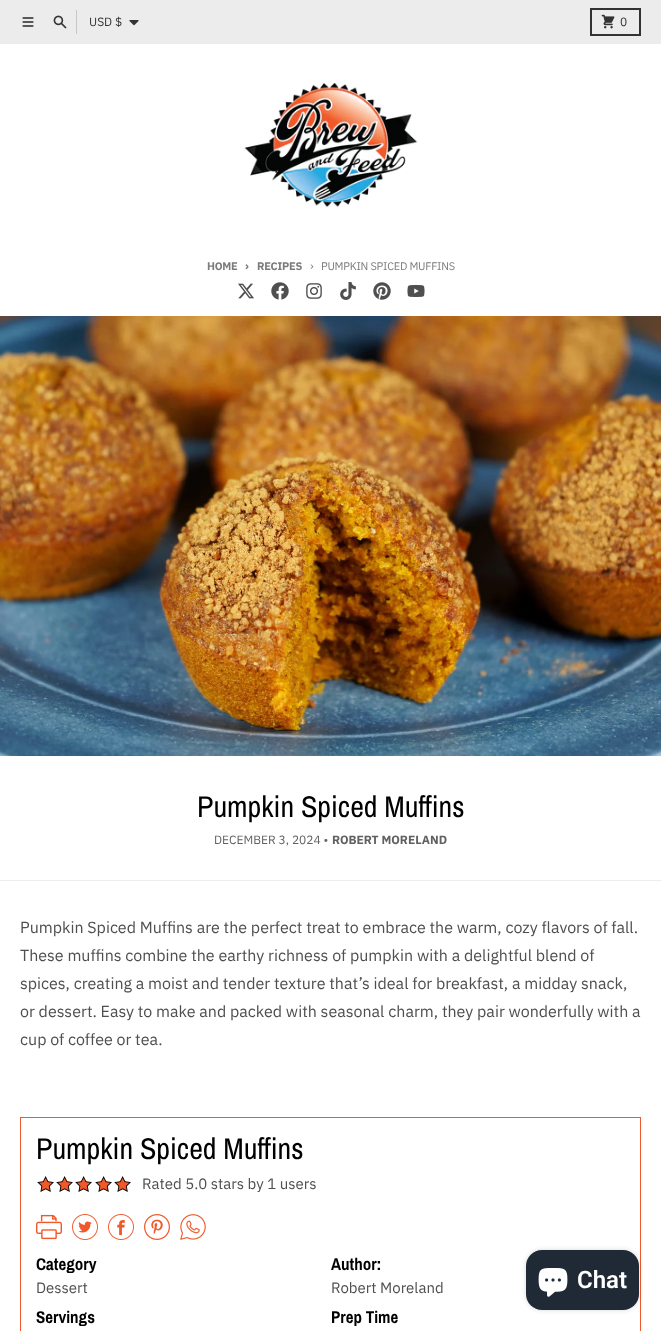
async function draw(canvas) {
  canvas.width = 661;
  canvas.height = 1331;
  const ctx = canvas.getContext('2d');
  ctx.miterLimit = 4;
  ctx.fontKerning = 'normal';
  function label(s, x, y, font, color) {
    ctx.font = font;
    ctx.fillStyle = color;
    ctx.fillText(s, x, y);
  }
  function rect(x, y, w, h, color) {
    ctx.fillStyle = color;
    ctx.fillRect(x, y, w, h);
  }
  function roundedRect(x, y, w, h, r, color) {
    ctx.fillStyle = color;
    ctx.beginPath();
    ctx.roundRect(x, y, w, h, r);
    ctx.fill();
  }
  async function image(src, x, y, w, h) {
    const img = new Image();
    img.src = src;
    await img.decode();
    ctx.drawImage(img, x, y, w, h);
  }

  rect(0, 0, 661, 1331, '#ececec');
  await image('assets/img1.png', 22, 17, 12, 10);
  await image('assets/img2.png', 53, 15, 14, 14);
  rect(76, 10, 1, 24, '#c7c7c7');
  label('USD $', 89, 26, '12px IBM Plex Sans', '#333');
  await image('assets/img3.png', 129, 20, 10, 6);
  ctx.strokeStyle = '#333';
  ctx.lineWidth = 2;
  ctx.strokeRect(591, 9, 49, 26);
  await image('assets/img4.png', 601, 14, 14, 15);
  label('0', 620, 26, '12px IBM Plex Sans', '#333');
  rect(0, 44, 661, 1287, '#fff');
  await image('assets/img5.png', 244, 83, 174, 125);
  ctx.letterSpacing = '-0.25px';
  label('HOME', 207, 270, 'bold 11px IBM Plex Sans', '#7b7b7b');
  label('›', 245, 270, 'bold 12px IBM Plex Sans', '#7b7b7b');
  label('RECIPES', 257, 270, 'bold 11px IBM Plex Sans', '#7b7b7b');
  label('›', 310, 270, '12px IBM Plex Sans', '#7b7b7b');
  label('PUMPKIN SPICED MUFFINS', 321, 270, '11px IBM Plex Sans', '#7b7b7b');
  await image('assets/img6.png', 238, 283, 16, 16);
  await image('assets/img7.png', 271, 282, 18, 18);
  await image('assets/img8.png', 306, 283, 16, 16);
  await image('assets/img9.png', 340, 282, 16, 18);
  await image('assets/img10.png', 373, 282, 18, 18);
  await image('assets/img11.png', 407, 285, 18, 12);
  await image('assets/img12.png', 0, 316, 661, 440);
  rect(0, 880, 661, 1, '#ededed');
  ctx.letterSpacing = '0px';
  label('Pumpkin Spiced Muffins', 197, 817, '30px Archivo Narrow', '#000');
  label('DECEMBER 3, 2024 •', 214, 844, '12px IBM Plex Sans', '#616161');
  label('ROBERT MORELAND', 332, 844, 'bold 12px IBM Plex Sans', '#616161');
  label('Pumpkin Spiced Muffins are the perfect treat to embrace the warm, cozy flavors of fall.', 20, 933, '16px IBM Plex Sans', '#4f4f4f');
  label('These muffins combine the earthy richness of pumpkin with a delightful blend of', 20, 961, '16px IBM Plex Sans', '#4f4f4f');
  label('spices, creating a moist and tender texture that’s ideal for breakfast, a midday snack,', 20, 989, '16px IBM Plex Sans', '#4f4f4f');
  label('or dessert. Easy to make and packed with seasonal charm, they pair wonderfully with a', 20, 1017, '16px IBM Plex Sans', '#4f4f4f');
  label('cup of coffee or tea.', 20, 1045, '16px IBM Plex Sans', '#4f4f4f');
  ctx.strokeStyle = '#f1592a';
  ctx.lineWidth = 1;
  ctx.strokeRect(20.5, 1117.5, 620, 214);
  label('Pumpkin Spiced Muffins', 36, 1159, '30px Archivo Narrow', '#000');
  await image('assets/img13.png', 37, 1176, 17, 16);
  await image('assets/img13.png', 56, 1176, 17, 16);
  await image('assets/img13.png', 75, 1176, 17, 16);
  await image('assets/img13.png', 95, 1176, 17, 16);
  await image('assets/img13.png', 114, 1176, 17, 16);
  label('Rated 5.0 stars by 1 users', 142, 1189, '15px IBM Plex Sans', '#4f4f4f');
  await image('assets/img14.png', 36, 1214, 26, 26);
  await image('assets/img15.png', 72, 1214, 26, 26);
  await image('assets/img16.png', 108, 1214, 26, 26);
  await image('assets/img17.png', 144, 1214, 26, 26);
  await image('assets/img18.png', 180, 1214, 26, 26);
  label('Category', 36, 1270, 'bold 17px Archivo Narrow', '#000');
  label('Dessert', 36, 1293, '15px IBM Plex Sans', '#4f4f4f');
  label('Author:', 331, 1270, 'bold 17px Archivo Narrow', '#000');
  label('Robert Moreland', 331, 1293, '15px IBM Plex Sans', '#4f4f4f');
  label('Servings', 36, 1323, 'bold 17px Archivo Narrow', '#000');
  label('Prep Time', 331, 1323, 'bold 17px Archivo Narrow', '#000');
  ctx.fillStyle = '#00000026';
  ctx.filter = 'blur(2.5px)';
  ctx.beginPath();
  ctx.roundRect(526, 1250, 113, 60, 16);
  ctx.fill();
  ctx.filter = 'none';
  roundedRect(526, 1250, 113, 60, 16, '#202a36');
  await image('assets/img19.png', 538, 1268, 30, 29);
  label('Chat', 577, 1288, '600 24px Roboto', '#fff');
}

draw(document.querySelector('canvas'));
